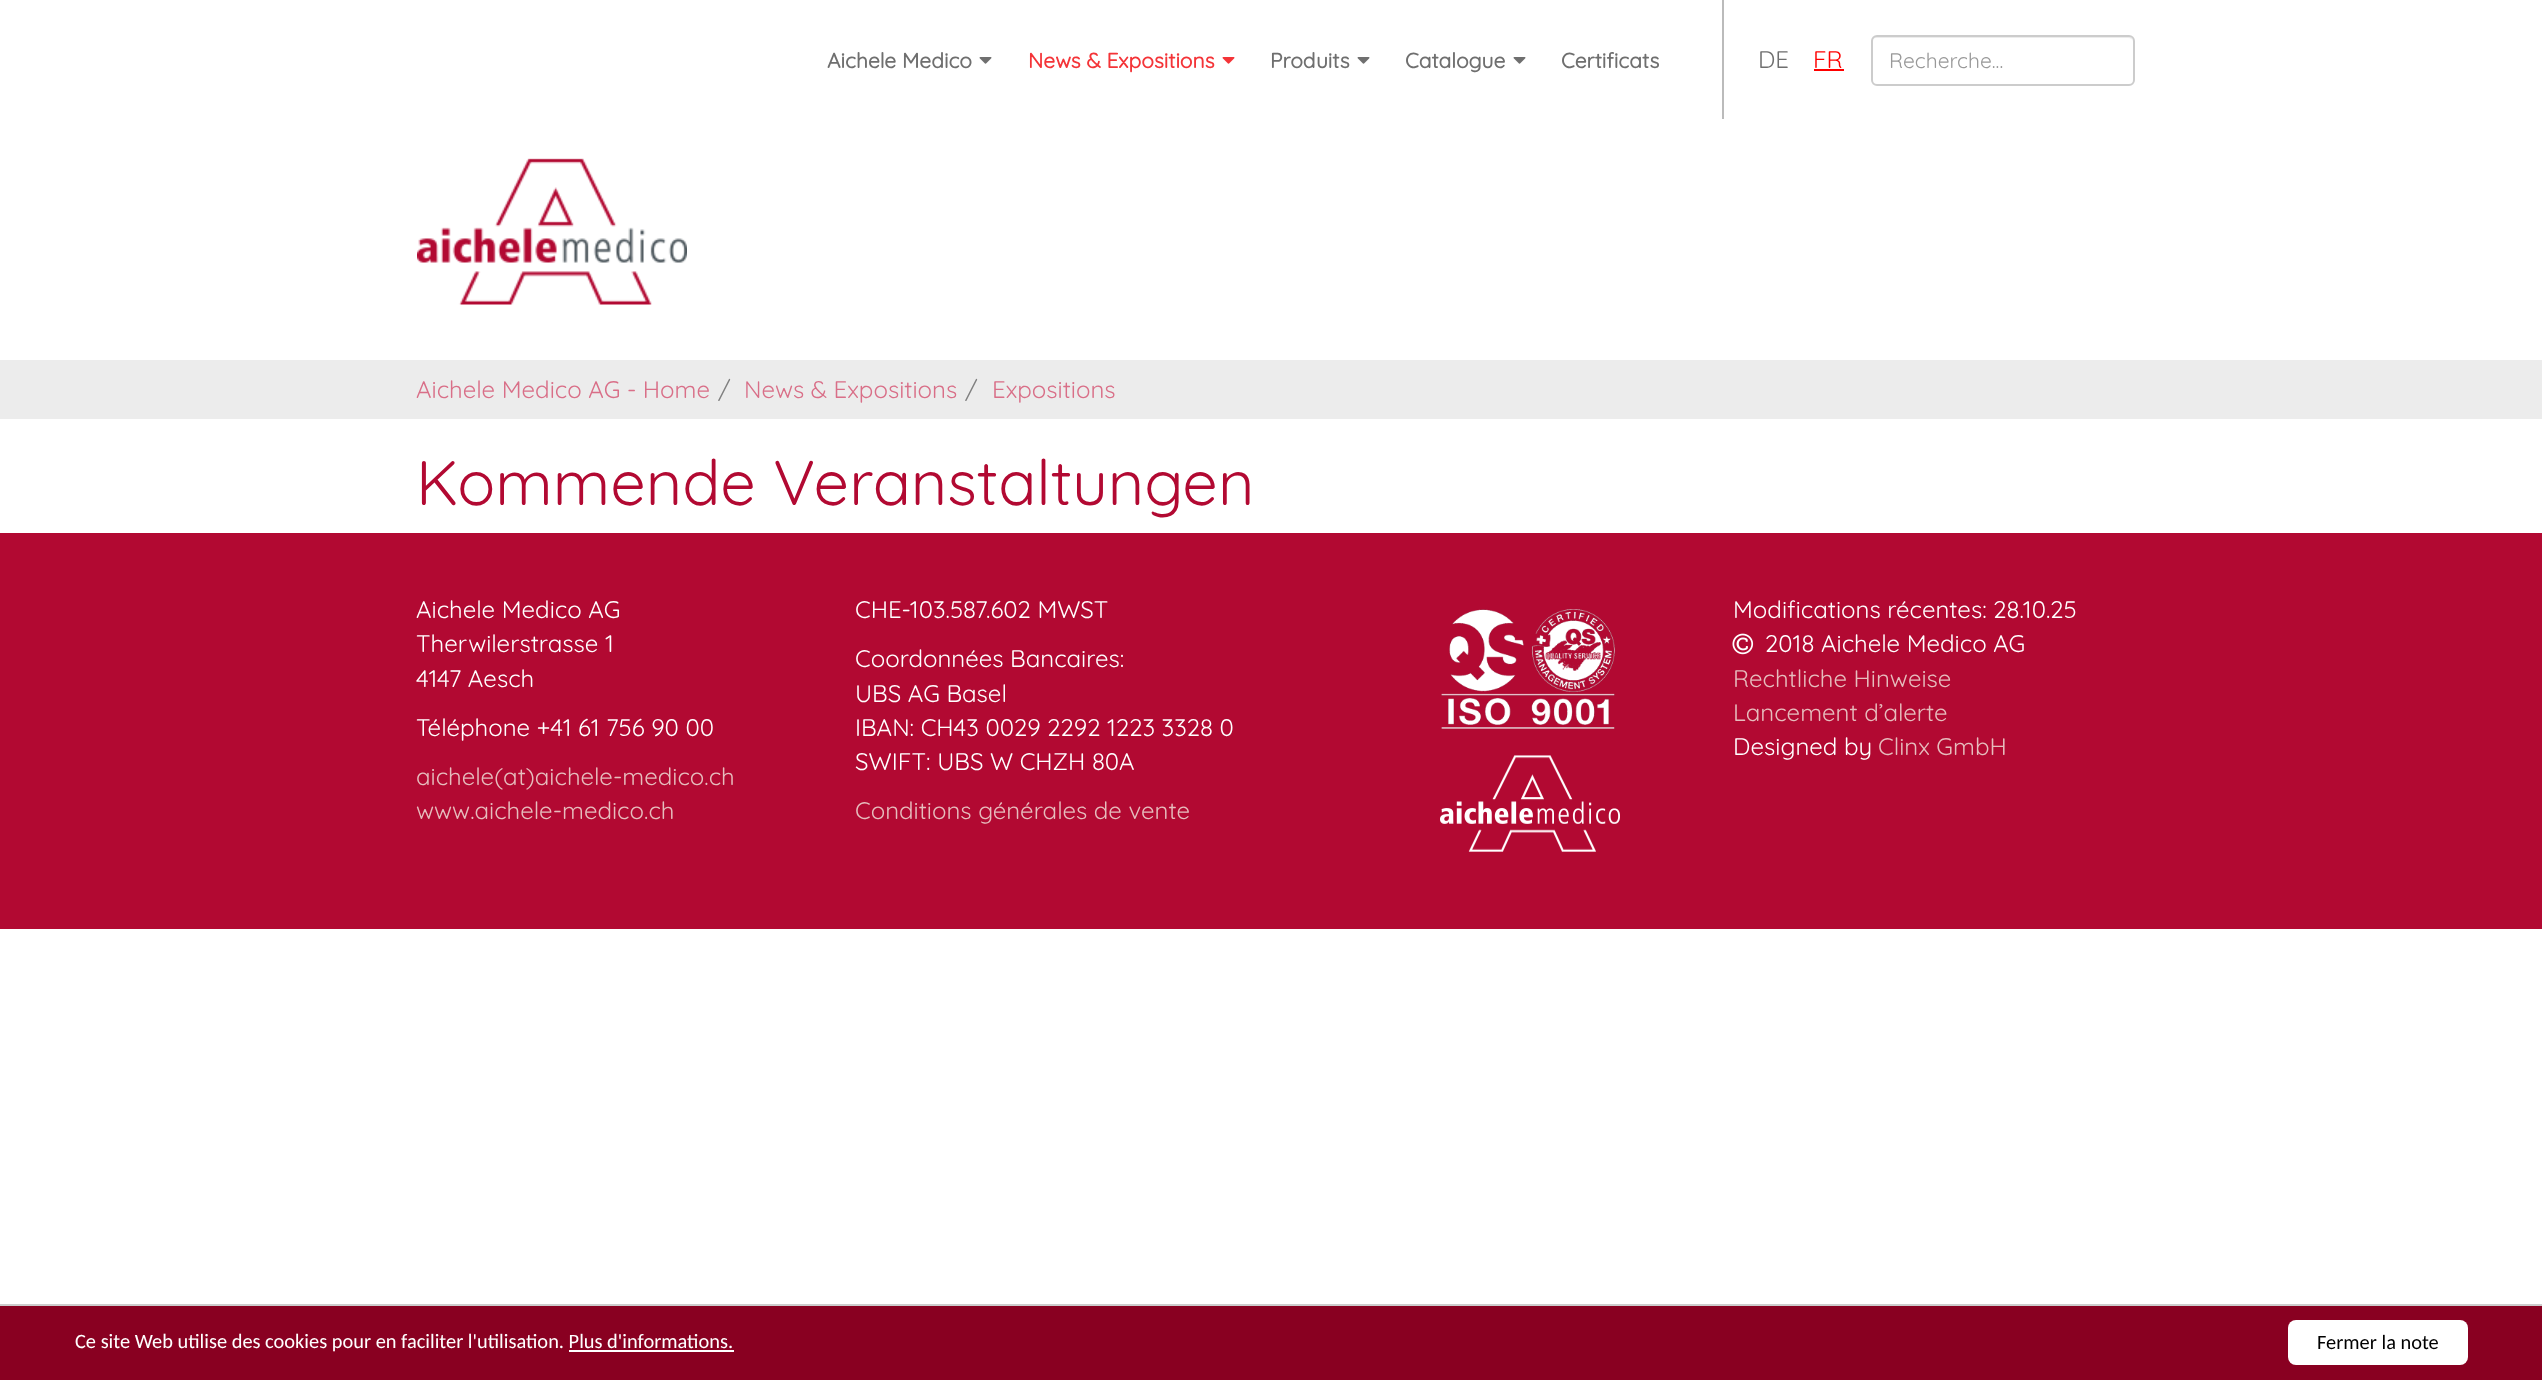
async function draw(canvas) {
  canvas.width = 2542;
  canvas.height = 1380;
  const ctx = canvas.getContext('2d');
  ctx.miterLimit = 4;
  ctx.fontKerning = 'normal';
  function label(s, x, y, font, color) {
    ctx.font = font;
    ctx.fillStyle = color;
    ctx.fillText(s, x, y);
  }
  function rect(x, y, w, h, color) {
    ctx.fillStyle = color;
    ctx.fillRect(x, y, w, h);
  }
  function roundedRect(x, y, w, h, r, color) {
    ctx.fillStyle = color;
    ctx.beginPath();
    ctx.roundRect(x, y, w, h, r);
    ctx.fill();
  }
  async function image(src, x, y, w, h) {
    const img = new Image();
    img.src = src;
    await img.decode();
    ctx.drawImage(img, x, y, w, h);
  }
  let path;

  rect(0, 0, 2542, 1380, '#fff');
  label('Aichele Medico', 827, 68, 'bold 21px Quicksand', '#6f6f6f');
  await image('assets/img1.png', 979, 57, 13, 7);
  label('News & Expositions', 1028, 68, 'bold 21px Quicksand', '#f43438');
  await image('assets/img2.png', 1222, 57, 13, 7);
  label('Produits', 1270, 68, 'bold 21px Quicksand', '#6f6f6f');
  await image('assets/img1.png', 1357, 57, 13, 7);
  label('Catalogue', 1405, 68, 'bold 21px Quicksand', '#6f6f6f');
  await image('assets/img1.png', 1513, 57, 13, 7);
  label('Certificats', 1561, 68, 'bold 21px Quicksand', '#6f6f6f');
  rect(1722, 0, 2, 119, '#bbb');
  label('DE', 1758, 68, '300 24px Quicksand', '#6f6f6f');
  label('FR', 1813, 68, '300 24px Quicksand', '#f00');
  rect(1814, 69, 30, 2, '#f00');
  ctx.fillStyle = '#ececec';
  path = new Path2D('M1876 38H2128C2131 38 2133 40 2133 42C2133 39 2131 36 2128 36H1877C1874 36 1872 39 1872 42C1872 40 1874 38 1876 38Z');
  ctx.fill(path);
  ctx.beginPath();
  ctx.roundRect(1872, 36, 262, 49, 5);
  ctx.strokeStyle = '#ccc';
  ctx.lineWidth = 2;
  ctx.stroke();
  label('Recherche...', 1889, 68, '300 21px Quicksand', '#999');
  await image('assets/img3.png', 417, 158, 270, 147);
  rect(0, 360, 2542, 59, '#ececec');
  label('Aichele Medico AG - Home', 416, 398, '300 24px Quicksand', '#d96f88');
  label('/', 718, 398, '300 24px Quicksand', '#808080');
  label('News & Expositions', 744, 398, '300 24px Quicksand', '#d96f88');
  label('/', 965, 398, '300 24px Quicksand', '#808080');
  label('Expositions', 992, 398, '300 24px Quicksand', '#d96f88');
  label('Kommende Veranstaltungen', 416, 505, '300 63px Quicksand', '#b20932');
  rect(0, 533, 2542, 396, '#b20932');
  label('Aichele Medico AG', 416, 618, '300 24px Quicksand', '#fff');
  label('Therwilerstrasse 1', 416, 652, '300 24px Quicksand', '#fff');
  label('4147 Aesch', 416, 687, '300 24px Quicksand', '#fff');
  label('Téléphone +41 61 756 90 00', 416, 736, '300 24px Quicksand', '#fff');
  label('aichele(at)aichele-medico.ch', 416, 785, '300 24px Quicksand', '#e6bdbd');
  label('www.aichele-medico.ch', 416, 819, '300 24px Quicksand', '#e6bdbd');
  label('CHE-103.587.602 MWST', 855, 618, '300 24px Quicksand', '#fff');
  label('Coordonnées Bancaires:', 855, 667, '300 24px Quicksand', '#fff');
  label('UBS AG Basel', 855, 702, '300 24px Quicksand', '#fff');
  label('IBAN: CH43 0029 2292 1223 3328 0', 855, 736, '300 24px Quicksand', '#fff');
  label('SWIFT: UBS W CHZH 80A', 855, 770, '300 24px Quicksand', '#fff');
  label('Conditions générales de vente', 855, 819, '300 24px Quicksand', '#e6bdbd');
  await image('assets/img4.png', 1441, 609, 174, 120);
  await image('assets/img5.png', 1440, 755, 180, 97);
  label('Modifications récentes: 28.10.25', 1733, 618, '300 24px Quicksand', '#fff');
  await image('assets/img6.png', 1732, 633, 22, 22);
  label('2018 Aichele Medico AG', 1765, 652, '300 24px Quicksand', '#fff');
  label('Rechtliche Hinweise', 1733, 687, '300 24px Quicksand', '#e6bdbd');
  label('Lancement d’alerte', 1733, 721, '300 24px Quicksand', '#e6bdbd');
  label('Designed by', 1733, 755, '300 24px Quicksand', '#fff');
  label('Clinx GmbH', 1878, 755, '300 24px Quicksand', '#e6bdbd');
  rect(0, 1306, 2542, 74, '#890021');
  rect(0, 1304, 2542, 2, '#ccc');
  label('Ce site Web utilise des cookies pour en faciliter l\'utilisation. Plus d\'informations.', 75, 1348, '20.4px Carlito', '#fff');
  rect(569, 1350, 165, 2, '#fff');
  roundedRect(2288, 1320, 180, 45, 8, '#fff');
  label('Fermer la note', 2317, 1349, '20.4px Carlito', '#000');
}

draw(document.querySelector('canvas'));
